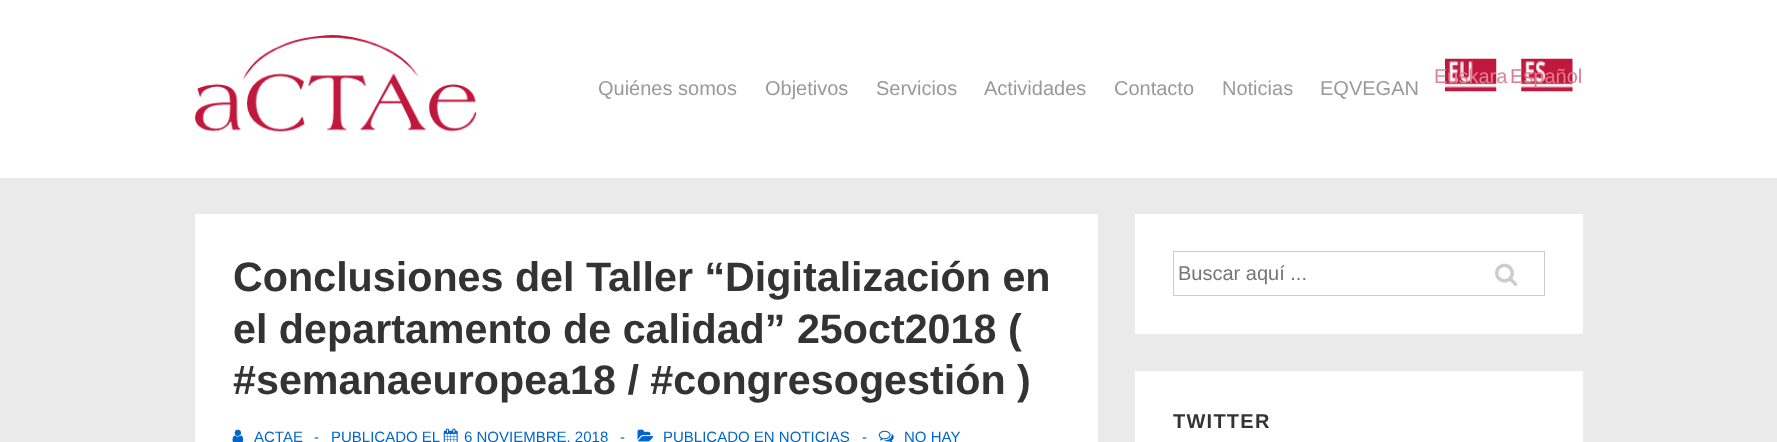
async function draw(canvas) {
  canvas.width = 1777;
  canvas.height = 442;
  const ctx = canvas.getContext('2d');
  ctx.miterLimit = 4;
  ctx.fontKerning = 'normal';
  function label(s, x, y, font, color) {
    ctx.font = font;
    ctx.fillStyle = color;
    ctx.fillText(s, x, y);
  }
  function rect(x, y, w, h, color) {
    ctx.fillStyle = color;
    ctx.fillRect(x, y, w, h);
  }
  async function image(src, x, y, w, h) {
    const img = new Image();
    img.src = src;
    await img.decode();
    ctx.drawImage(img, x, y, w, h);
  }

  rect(0, 0, 1777, 442, '#eaeaea');
  rect(0, 0, 1777, 178, '#fff');
  await image('assets/img1.png', 195, 35, 282, 97);
  label('Quiénes somos', 598, 95, '20px Liberation Sans', '#999');
  label('Objetivos', 765, 95, '20px Liberation Sans', '#999');
  label('Servicios', 876, 95, '20px Liberation Sans', '#999');
  label('Actividades', 984, 95, '20px Liberation Sans', '#999');
  label('Contacto', 1114, 95, '20px Liberation Sans', '#999');
  label('Noticias', 1222, 95, '20px Liberation Sans', '#999');
  label('EQVEGAN', 1320, 95, '20px Liberation Sans', '#999');
  await image('assets/img2.png', 1445, 58, 52, 34);
  label('Euskara', 1434, 83, '20px Liberation Sans', '#de8699');
  await image('assets/img3.png', 1521, 58, 52, 34);
  label('Español', 1510, 83, '20px Liberation Sans', '#dc7d92');
  rect(195, 214, 903, 228, '#fff');
  label('Conclusiones del Taller “Digitalización en', 233, 291, 'bold 41.25px Liberation Sans', '#333');
  label('el departamento de calidad” 25oct2018 (', 233, 343, 'bold 41.25px Liberation Sans', '#333');
  label('#semanaeuropea18 / #congresogestión )', 233, 394, 'bold 41.25px Liberation Sans', '#333');
  await image('assets/img4.png', 232, 429, 12, 13);
  label('ACTAE', 254, 442, '15px Liberation Sans', '#06c');
  label('-', 314, 442, '15px Liberation Sans', '#06c');
  label('PUBLICADO EL', 331, 442, '15px Liberation Sans', '#06c');
  await image('assets/img5.png', 443, 428, 15, 14);
  label('6 NOVIEMBRE, 2018', 464, 442, '15px Liberation Sans', '#06c');
  label('-', 620, 442, '15px Liberation Sans', '#06c');
  await image('assets/img6.png', 637, 429, 17, 13);
  label('PUBLICADO EN NOTICIAS', 663, 442, '15px Liberation Sans', '#06c');
  label('-', 862, 442, '15px Liberation Sans', '#06c');
  await image('assets/img7.png', 878, 430, 16, 12);
  label('NO HAY', 904, 442, '15px Liberation Sans', '#06c');
  rect(1135, 214, 448, 120, '#fff');
  ctx.strokeStyle = '#ccc';
  ctx.strokeRect(1173.5, 251.5, 371, 44);
  label('Buscar aquí ...', 1178, 280, '20px Liberation Sans', '#757575');
  await image('assets/img8.png', 1495, 263, 23, 23);
  rect(1135, 371, 448, 71, '#fff');
  ctx.letterSpacing = '1.25px';
  label('TWITTER', 1173, 428, 'bold 20px Liberation Sans', '#333');
}

draw(document.querySelector('canvas'));
